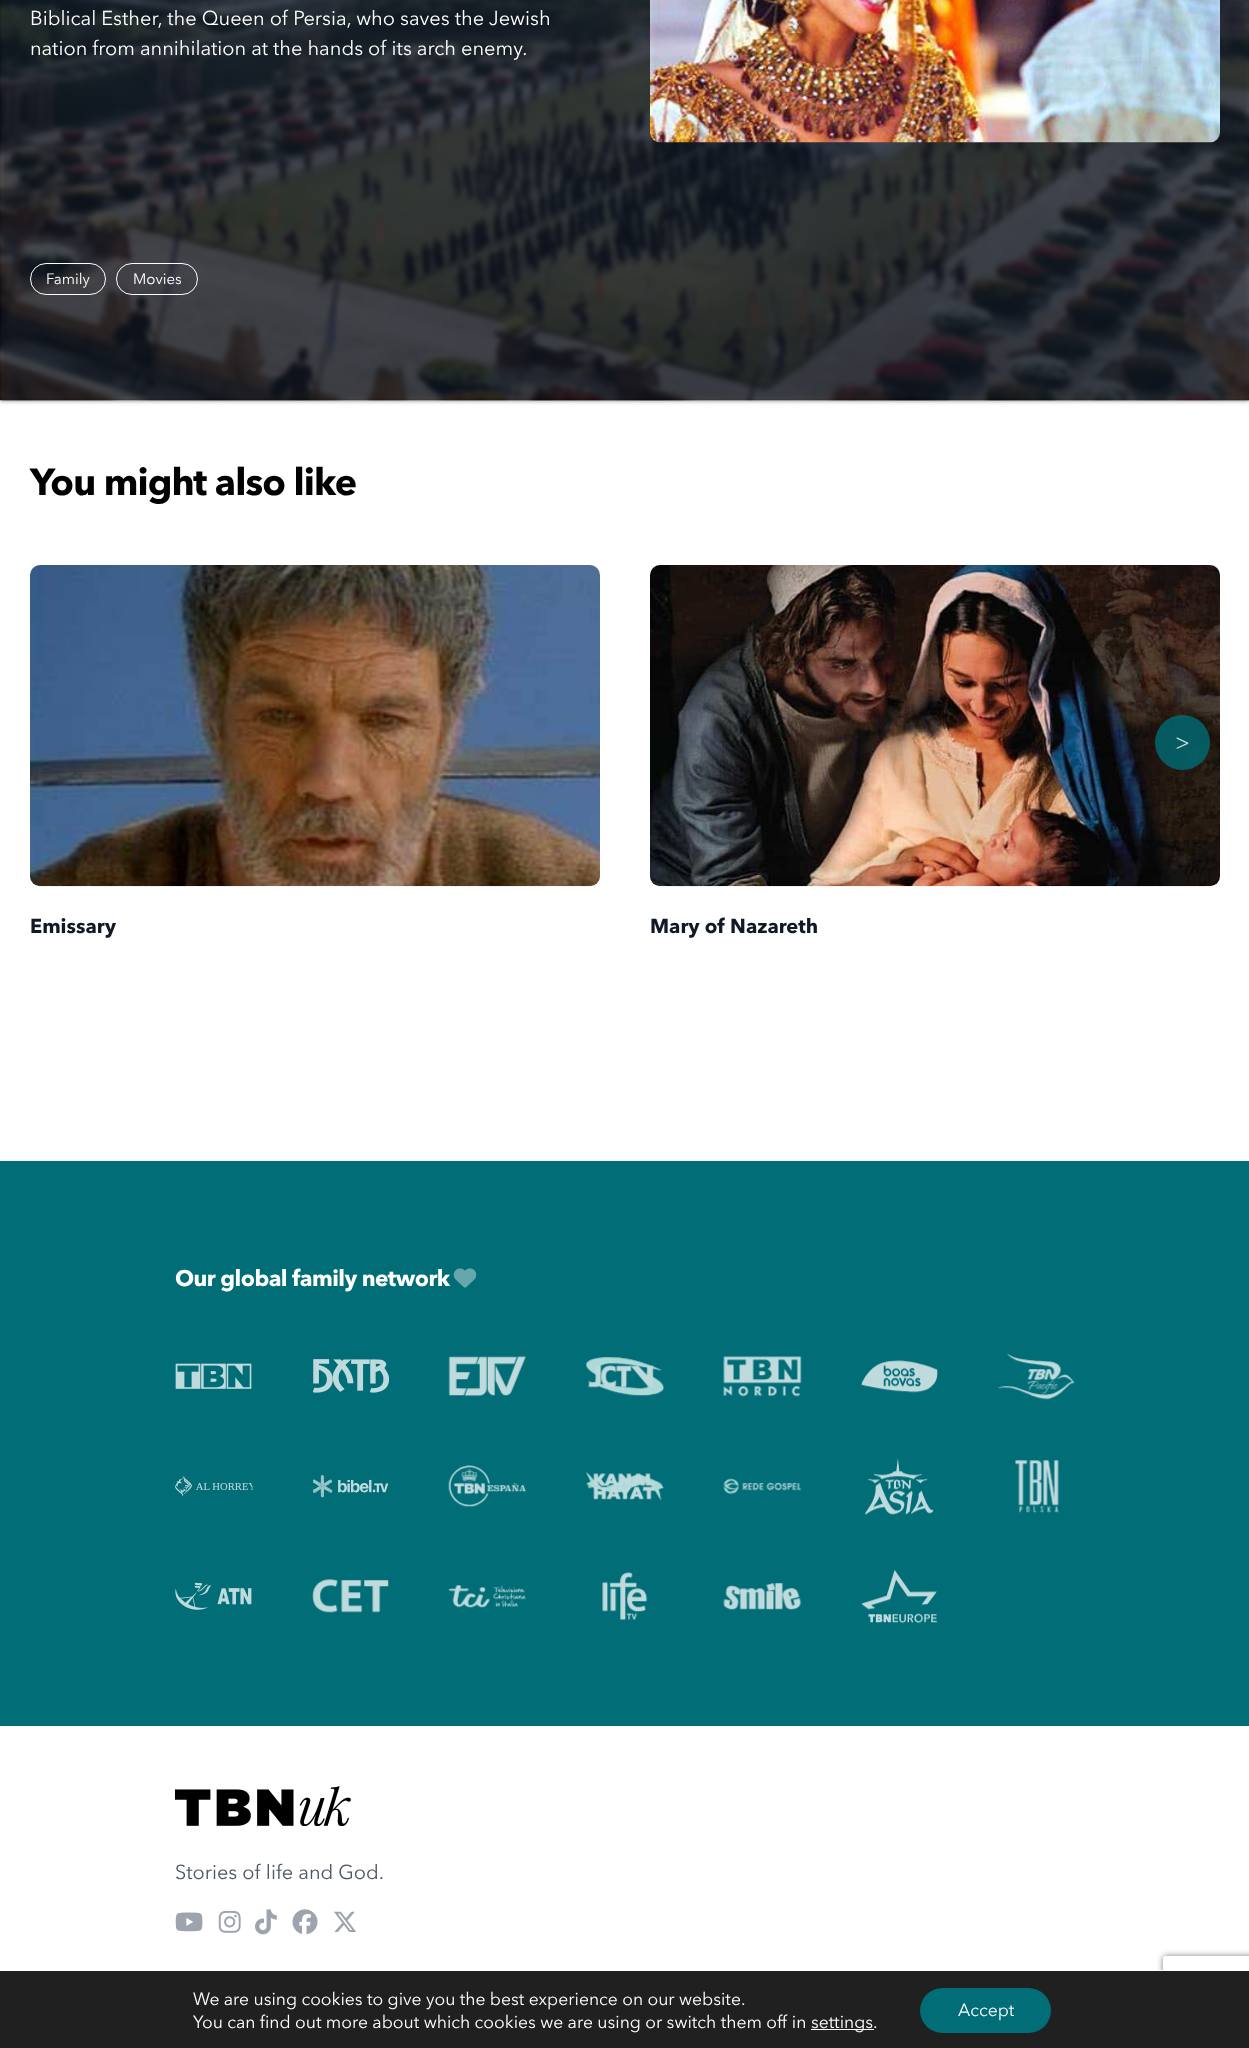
async function draw(canvas) {
  canvas.width = 1249;
  canvas.height = 2048;
  const ctx = canvas.getContext('2d');
  ctx.miterLimit = 4;
  ctx.fontKerning = 'normal';
  function label(s, x, y, font, color) {
    ctx.font = font;
    ctx.fillStyle = color;
    ctx.fillText(s, x, y);
  }
  function rect(x, y, w, h, color) {
    ctx.fillStyle = color;
    ctx.fillRect(x, y, w, h);
  }
  function roundedRect(x, y, w, h, r, color) {
    ctx.fillStyle = color;
    ctx.beginPath();
    ctx.roundRect(x, y, w, h, r);
    ctx.fill();
  }
  async function image(src, x, y, w, h) {
    const img = new Image();
    img.src = src;
    await img.decode();
    ctx.drawImage(img, x, y, w, h);
  }
  let path;

  rect(0, 0, 1249, 2048, '#fff');
  rect(0, 1160, 1249, 1, '#f3f4f6');
  rect(0, 0, 1249, 400, '#000');
  await image('assets/img1.png', 0, 0, 1249, 401);
  ctx.fillStyle = '#111927b3';
  ctx.filter = 'blur(2.5px)';
  ctx.beginPath();
  ctx.rect(0, -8, 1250, 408);
  ctx.fill();
  ctx.filter = 'none';
  label('Biblical Esther, the Queen of Persia, who saves the Jewish', 30, 25, '20px Avenir Next', '#fff');
  label('nation from annihilation at the hands of its arch enemy.', 30, 55, '20px Avenir Next', '#fff');
  ctx.beginPath();
  ctx.roundRect(30.5, 263.5, 75, 31, 15.5);
  ctx.strokeStyle = '#fff';
  ctx.stroke();
  label('Family', 46, 284, '15px Avenir Next', '#fff');
  ctx.beginPath();
  ctx.roundRect(116.5, 263.5, 81, 31, 15.5);
  ctx.stroke();
  label('Movies', 133, 284, '15px Avenir Next', '#fff');
  ctx.fillStyle = '#0000001a';
  ctx.filter = 'blur(9.5px)';
  ctx.beginPath();
  ctx.roundRect(654, -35, 562, 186, 6);
  ctx.fill();
  ctx.filter = 'none';
  await image('assets/img2.png', 650, 0, 570, 143);
  ctx.letterSpacing = '-0.9px';
  label('You might also like', 30, 495, 'bold 37.5px Avenir Next', '#000');
  await image('assets/img4.png', 650, 565, 570, 322);
  ctx.fillStyle = '#006d77cc';
  ctx.beginPath();
  ctx.arc(1182.5, 742.5, 27.5, 0, 2 * Math.PI);
  ctx.fill();
  ctx.letterSpacing = '0px';
  label('>', 1175, 750, '22.5px Avenir Next', '#cddee0');
  await image('assets/img3.png', 30, 565, 570, 322);
  label('Emissary', 30, 933, 'bold 20px Avenir Next', '#111927');
  label('Mary of Nazareth', 650, 933, 'bold 20px Avenir Next', '#111927');
  rect(0, 1161, 1249, 565, '#006d77');
  ctx.letterSpacing = '-0.55px';
  label('Our global family network', 175, 1286, 'bold 22.5px Avenir Next', '#fff');
  await image('assets/img5.png', 453, 1268, 24, 20);
  await image('assets/img6.png', 175, 1363, 77, 26);
  await image('assets/img7.png', 313, 1359, 76, 34);
  await image('assets/img8.png', 448, 1356, 78, 41);
  await image('assets/img9.png', 586, 1357, 79, 39);
  await image('assets/img10.png', 723, 1356, 79, 41);
  await image('assets/img11.png', 861, 1360, 77, 33);
  await image('assets/img12.png', 998, 1353, 77, 47);
  await image('assets/img13.png', 175, 1476, 78, 21);
  await image('assets/img14.png', 313, 1475, 76, 23);
  await image('assets/img15.png', 448, 1465, 78, 42);
  await image('assets/img16.png', 586, 1472, 78, 29);
  await image('assets/img17.png', 723, 1478, 79, 17);
  await image('assets/img18.png', 865, 1458, 69, 57);
  await image('assets/img19.png', 1015, 1460, 44, 53);
  await image('assets/img20.png', 175, 1582, 77, 28);
  await image('assets/img21.png', 312, 1579, 77, 34);
  await image('assets/img22.png', 448, 1585, 78, 23);
  await image('assets/img23.png', 602, 1572, 46, 49);
  await image('assets/img24.png', 723, 1583, 78, 27);
  await image('assets/img25.png', 861, 1570, 76, 54);
  await image('assets/img26.png', 175, 1786, 176, 40);
  ctx.letterSpacing = '0px';
  label('Stories of life and God.', 175, 1879, '20px Avenir Next', '#4d5761');
  await image('assets/img27.png', 175, 1912, 28, 20);
  await image('assets/img28.png', 218, 1910, 23, 23);
  await image('assets/img29.png', 255, 1909, 22, 26);
  await image('assets/img30.png', 292, 1909, 26, 26);
  await image('assets/img31.png', 334, 1911, 23, 21);
  ctx.save();
  path = new Path2D('M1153 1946H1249V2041H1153ZM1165.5 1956H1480.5C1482 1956 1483 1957 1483 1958.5V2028.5C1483 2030 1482 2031 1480.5 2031H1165.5C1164 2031 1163 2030 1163 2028.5V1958.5C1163 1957 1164 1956 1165.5 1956Z');
  ctx.clip(path, 'evenodd');
  ctx.fillStyle = '#808080';
  ctx.filter = 'blur(3px)';
  ctx.beginPath();
  ctx.roundRect(1163, 1956, 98, 75, 2.5);
  ctx.fill();
  ctx.filter = 'none';
  ctx.restore();
  rect(0, 1971, 1249, 77, '#202020');
  rect(1157, 1970, 6, 1, '#fff');
  label('We are using cookies to give you the best experience on our website.', 193, 2005, '17.5px Avenir Next', '#fff');
  label('You can find out more about which cookies we are using or switch them off in', 193, 2028, '17.5px Avenir Next', '#fff');
  rect(811, 2029, 63, 1, '#fff');
  label('settings.', 811, 2028, '17.5px Avenir Next', '#fff');
  roundedRect(920, 1988, 131, 45, 22.5, '#006d77');
  label('Accept', 958, 2016, '17.5px Avenir Next', '#fff');
}

draw(document.querySelector('canvas'));
